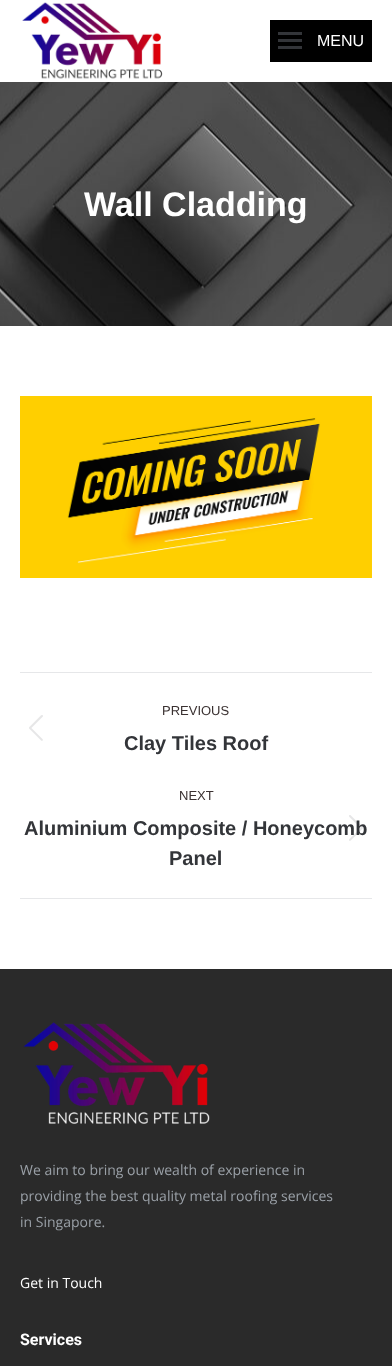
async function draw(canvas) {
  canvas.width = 392;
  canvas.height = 1366;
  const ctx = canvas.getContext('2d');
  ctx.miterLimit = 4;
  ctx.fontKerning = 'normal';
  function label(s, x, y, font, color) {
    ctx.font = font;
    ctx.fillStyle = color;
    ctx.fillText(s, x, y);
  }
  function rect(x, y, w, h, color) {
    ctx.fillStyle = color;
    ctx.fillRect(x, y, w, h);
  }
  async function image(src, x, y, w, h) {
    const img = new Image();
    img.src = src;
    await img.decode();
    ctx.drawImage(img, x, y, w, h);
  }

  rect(0, 0, 392, 1366, '#fff');
  await image('assets/img1.png', 22, 2, 141, 77);
  rect(270, 20, 102, 42, '#000');
  rect(278, 32, 24, 3, '#333539');
  rect(278, 39, 24, 3, '#333539');
  rect(278, 46, 24, 3, '#333539');
  label('MENU', 317, 46, '16px Liberation Sans', '#fff');
  await image('assets/img2.png', 0, 82, 392, 244);
  label('Wall Cladding', 84, 216, 'bold 34px Liberation Sans', '#fff');
  await image('assets/img3.png', 20, 396, 352, 182);
  rect(20, 672, 352, 1, '#e6e7e9');
  rect(20, 898, 352, 1, '#e6e7e9');
  label('PREVIOUS', 162, 715, '13px Liberation Sans', '#3a3131');
  await image('assets/img4.png', 29, 715, 14, 26);
  label('Clay Tiles Roof', 124, 750, 'bold 20px Liberation Sans', '#333539');
  label('NEXT', 179, 800, '13px Liberation Sans', '#3a3131');
  label('Aluminium Composite / Honeycomb', 24, 835, 'bold 20px Liberation Sans', '#333539');
  await image('assets/img5.png', 349, 815, 14, 26);
  label('Panel', 169, 865, 'bold 20px Liberation Sans', '#333539');
  rect(0, 969, 392, 397, '#2a2a2a');
  await image('assets/img6.png', 23, 1022, 187, 102);
  label('We aim to bring our wealth of experience in', 20, 1175, '14px Open Sans', '#9aa0a7');
  label('providing the best quality metal roofing services', 20, 1201, '14px Open Sans', '#9aa0a7');
  label('in Singapore.', 20, 1227, '14px Open Sans', '#9aa0a7');
  label('Get in Touch', 20, 1288, '14px Open Sans', '#fff');
  label('Services', 20, 1345, 'bold 16px Roboto', '#fff');
}

draw(document.querySelector('canvas'));
